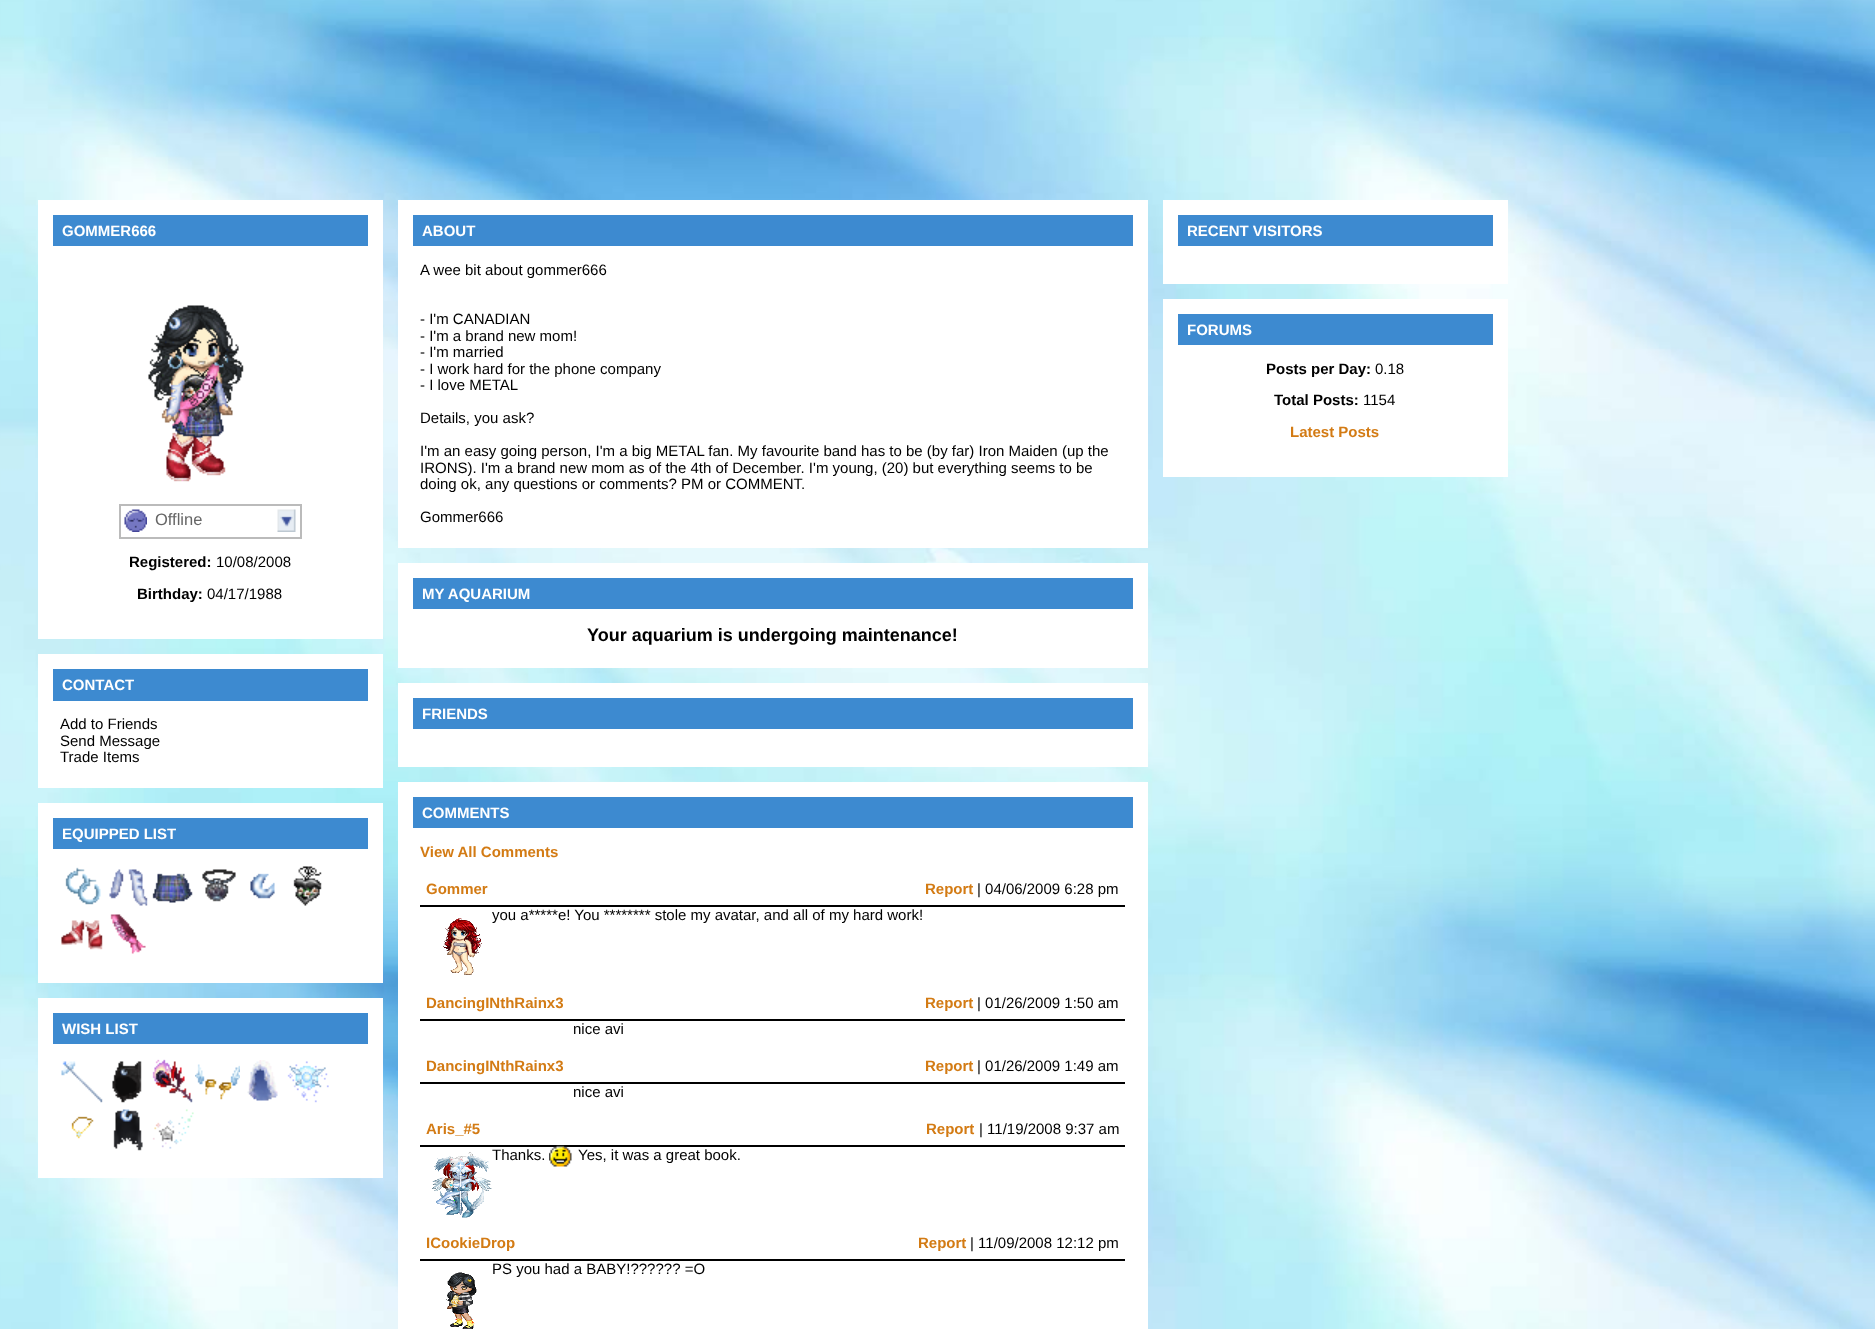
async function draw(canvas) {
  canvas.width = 1875;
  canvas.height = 1329;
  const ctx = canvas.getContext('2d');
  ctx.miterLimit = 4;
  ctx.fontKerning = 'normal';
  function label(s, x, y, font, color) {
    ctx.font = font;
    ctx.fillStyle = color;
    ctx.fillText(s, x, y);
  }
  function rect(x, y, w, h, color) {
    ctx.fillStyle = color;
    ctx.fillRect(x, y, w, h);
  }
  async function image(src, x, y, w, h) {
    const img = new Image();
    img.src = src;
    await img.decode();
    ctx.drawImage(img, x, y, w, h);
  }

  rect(0, 0, 1875, 1329, '#fff');
  await image('assets/img1.png', 0, 0, 1875, 1329);
  rect(38, 200, 345, 439, '#fff');
  rect(53, 215, 315, 31, '#3d8ad0');
  label('GOMMER666', 62, 236, 'bold 15px Liberation Sans', '#fff');
  await image('assets/img2.png', 148, 305, 96, 177);
  ctx.strokeStyle = '#bbb';
  ctx.lineWidth = 2;
  ctx.strokeRect(120, 505, 181, 33);
  await image('assets/img3.png', 277, 509, 19, 23);
  await image('assets/img4.png', 124, 509, 23, 23);
  label('Offline', 155, 525, '16.5px Liberation Sans', '#666');
  label('Registered:', 129, 567, 'bold 15px Liberation Sans', '#000');
  label('10/08/2008', 216, 567, '15px Liberation Sans', '#000');
  label('Birthday:', 137, 599, 'bold 15px Liberation Sans', '#000');
  label('04/17/1988', 207, 599, '15px Liberation Sans', '#000');
  rect(38, 654, 345, 134, '#fff');
  rect(53, 669, 315, 32, '#3d8ad0');
  label('CONTACT', 62, 690, 'bold 15px Liberation Sans', '#fff');
  label('Add to Friends', 60, 729, '15px Liberation Sans', '#000');
  label('Send Message', 60, 746, '15px Liberation Sans', '#000');
  label('Trade Items', 60, 762, '15px Liberation Sans', '#000');
  rect(38, 803, 345, 180, '#fff');
  rect(53, 818, 315, 31, '#3d8ad0');
  label('EQUIPPED LIST', 62, 839, 'bold 15px Liberation Sans', '#fff');
  await image('assets/img5.png', 65, 867, 36, 38);
  await image('assets/img6.png', 109, 869, 39, 37);
  await image('assets/img7.png', 152, 873, 41, 30);
  await image('assets/img8.png', 202, 869, 34, 33);
  await image('assets/img9.png', 250, 873, 25, 26);
  await image('assets/img10.png', 293, 866, 29, 40);
  await image('assets/img11.png', 61, 920, 42, 30);
  await image('assets/img12.png', 110, 914, 36, 40);
  rect(38, 998, 345, 180, '#fff');
  rect(53, 1013, 315, 31, '#3d8ad0');
  label('WISH LIST', 62, 1034, 'bold 15px Liberation Sans', '#fff');
  await image('assets/img13.png', 61, 1061, 42, 42);
  await image('assets/img14.png', 112, 1061, 30, 42);
  await image('assets/img15.png', 152, 1059, 41, 44);
  await image('assets/img16.png', 195, 1064, 45, 36);
  await image('assets/img17.png', 247, 1060, 31, 41);
  await image('assets/img18.png', 287, 1061, 42, 42);
  await image('assets/img19.png', 71, 1116, 23, 23);
  await image('assets/img20.png', 113, 1109, 30, 42);
  await image('assets/img21.png', 152, 1109, 42, 40);
  rect(398, 200, 750, 348, '#fff');
  rect(413, 215, 720, 31, '#3d8ad0');
  label('ABOUT', 422, 236, 'bold 15px Liberation Sans', '#fff');
  label('A wee bit about gommer666', 420, 275, '15px Liberation Sans', '#000');
  label('- I\'m CANADIAN', 420, 324, '15px Liberation Sans', '#000');
  label('- I\'m a brand new mom!', 420, 341, '15px Liberation Sans', '#000');
  label('- I\'m married', 420, 357, '15px Liberation Sans', '#000');
  label('- I work hard for the phone company', 420, 374, '15px Liberation Sans', '#000');
  label('- I love METAL', 420, 390, '15px Liberation Sans', '#000');
  label('Details, you ask?', 420, 423, '15px Liberation Sans', '#000');
  label('I\'m an easy going person, I\'m a big METAL fan. My favourite band has to be (by far) Iron Maiden (up the', 420, 456, '15px Liberation Sans', '#000');
  label('IRONS). I\'m a brand new mom as of the 4th of December. I\'m young, (20) but everything seems to be', 420, 473, '15px Liberation Sans', '#000');
  label('doing ok, any questions or comments? PM or COMMENT.', 420, 489, '15px Liberation Sans', '#000');
  label('Gommer666', 420, 522, '15px Liberation Sans', '#000');
  rect(398, 563, 750, 105, '#fff');
  rect(413, 578, 720, 31, '#3d8ad0');
  label('MY AQUARIUM', 422, 599, 'bold 15px Liberation Sans', '#fff');
  label('Your aquarium is undergoing maintenance!', 587, 641, 'bold 18px Liberation Sans', '#000');
  rect(398, 683, 750, 84, '#fff');
  rect(413, 698, 720, 31, '#3d8ad0');
  label('FRIENDS', 422, 719, 'bold 15px Liberation Sans', '#fff');
  rect(398, 782, 750, 547, '#fff');
  rect(413, 797, 720, 31, '#3d8ad0');
  label('COMMENTS', 422, 818, 'bold 15px Liberation Sans', '#fff');
  label('View All Comments', 420, 857, 'bold 15px Liberation Sans', '#d37b14');
  rect(420, 905, 705, 2, '#000');
  label('Gommer', 426, 894, 'bold 15px Liberation Sans', '#d37b14');
  label('Report', 925, 894, 'bold 15px Liberation Sans', '#d37b14');
  label('| 04/06/2009 6:28 pm', 977, 894, '15px Liberation Sans', '#000');
  label('you a*****e! You ******** stole my avatar, and all of my hard work!', 492, 920, '15px Liberation Sans', '#000');
  await image('assets/img22.png', 443, 918, 39, 57);
  rect(420, 1019, 705, 2, '#000');
  label('DancingINthRainx3', 426, 1008, 'bold 15px Liberation Sans', '#d37b14');
  label('Report', 925, 1008, 'bold 15px Liberation Sans', '#d37b14');
  label('| 01/26/2009 1:50 am', 977, 1008, '15px Liberation Sans', '#000');
  label('nice avi', 573, 1034, '15px Liberation Sans', '#000');
  rect(420, 1082, 705, 2, '#000');
  label('DancingINthRainx3', 426, 1071, 'bold 15px Liberation Sans', '#d37b14');
  label('Report', 925, 1071, 'bold 15px Liberation Sans', '#d37b14');
  label('| 01/26/2009 1:49 am', 977, 1071, '15px Liberation Sans', '#000');
  label('nice avi', 573, 1097, '15px Liberation Sans', '#000');
  rect(420, 1145, 705, 2, '#000');
  label('Aris_#5', 426, 1134, 'bold 15px Liberation Sans', '#d37b14');
  label('Report', 926, 1134, 'bold 15px Liberation Sans', '#d37b14');
  label('| 11/19/2008 9:37 am', 979, 1134, '15px Liberation Sans', '#000');
  await image('assets/img23.png', 432, 1152, 60, 66);
  label('Thanks.', 492, 1160, '15px Liberation Sans', '#000');
  await image('assets/img24.png', 549, 1145, 23, 22);
  label('Yes, it was a great book.', 578, 1160, '15px Liberation Sans', '#000');
  rect(420, 1259, 705, 2, '#000');
  label('ICookieDrop', 426, 1248, 'bold 15px Liberation Sans', '#d37b14');
  label('Report', 918, 1248, 'bold 15px Liberation Sans', '#d37b14');
  label('| 11/09/2008 12:12 pm', 970, 1248, '15px Liberation Sans', '#000');
  label('PS you had a BABY!?????? =O', 492, 1274, '15px Liberation Sans', '#000');
  await image('assets/img25.png', 446, 1272, 31, 57);
  rect(1163, 200, 345, 84, '#fff');
  rect(1178, 215, 315, 31, '#3d8ad0');
  label('RECENT VISITORS', 1187, 236, 'bold 15px Liberation Sans', '#fff');
  rect(1163, 299, 345, 178, '#fff');
  rect(1178, 314, 315, 31, '#3d8ad0');
  label('FORUMS', 1187, 335, 'bold 15px Liberation Sans', '#fff');
  label('Posts per Day:', 1266, 374, 'bold 15px Liberation Sans', '#000');
  label('0.18', 1375, 374, '15px Liberation Sans', '#000');
  label('Total Posts:', 1274, 405, 'bold 15px Liberation Sans', '#000');
  label('1154', 1363, 405, '15px Liberation Sans', '#000');
  label('Latest Posts', 1290, 437, 'bold 15px Liberation Sans', '#d37b14');
}

draw(document.querySelector('canvas'));
